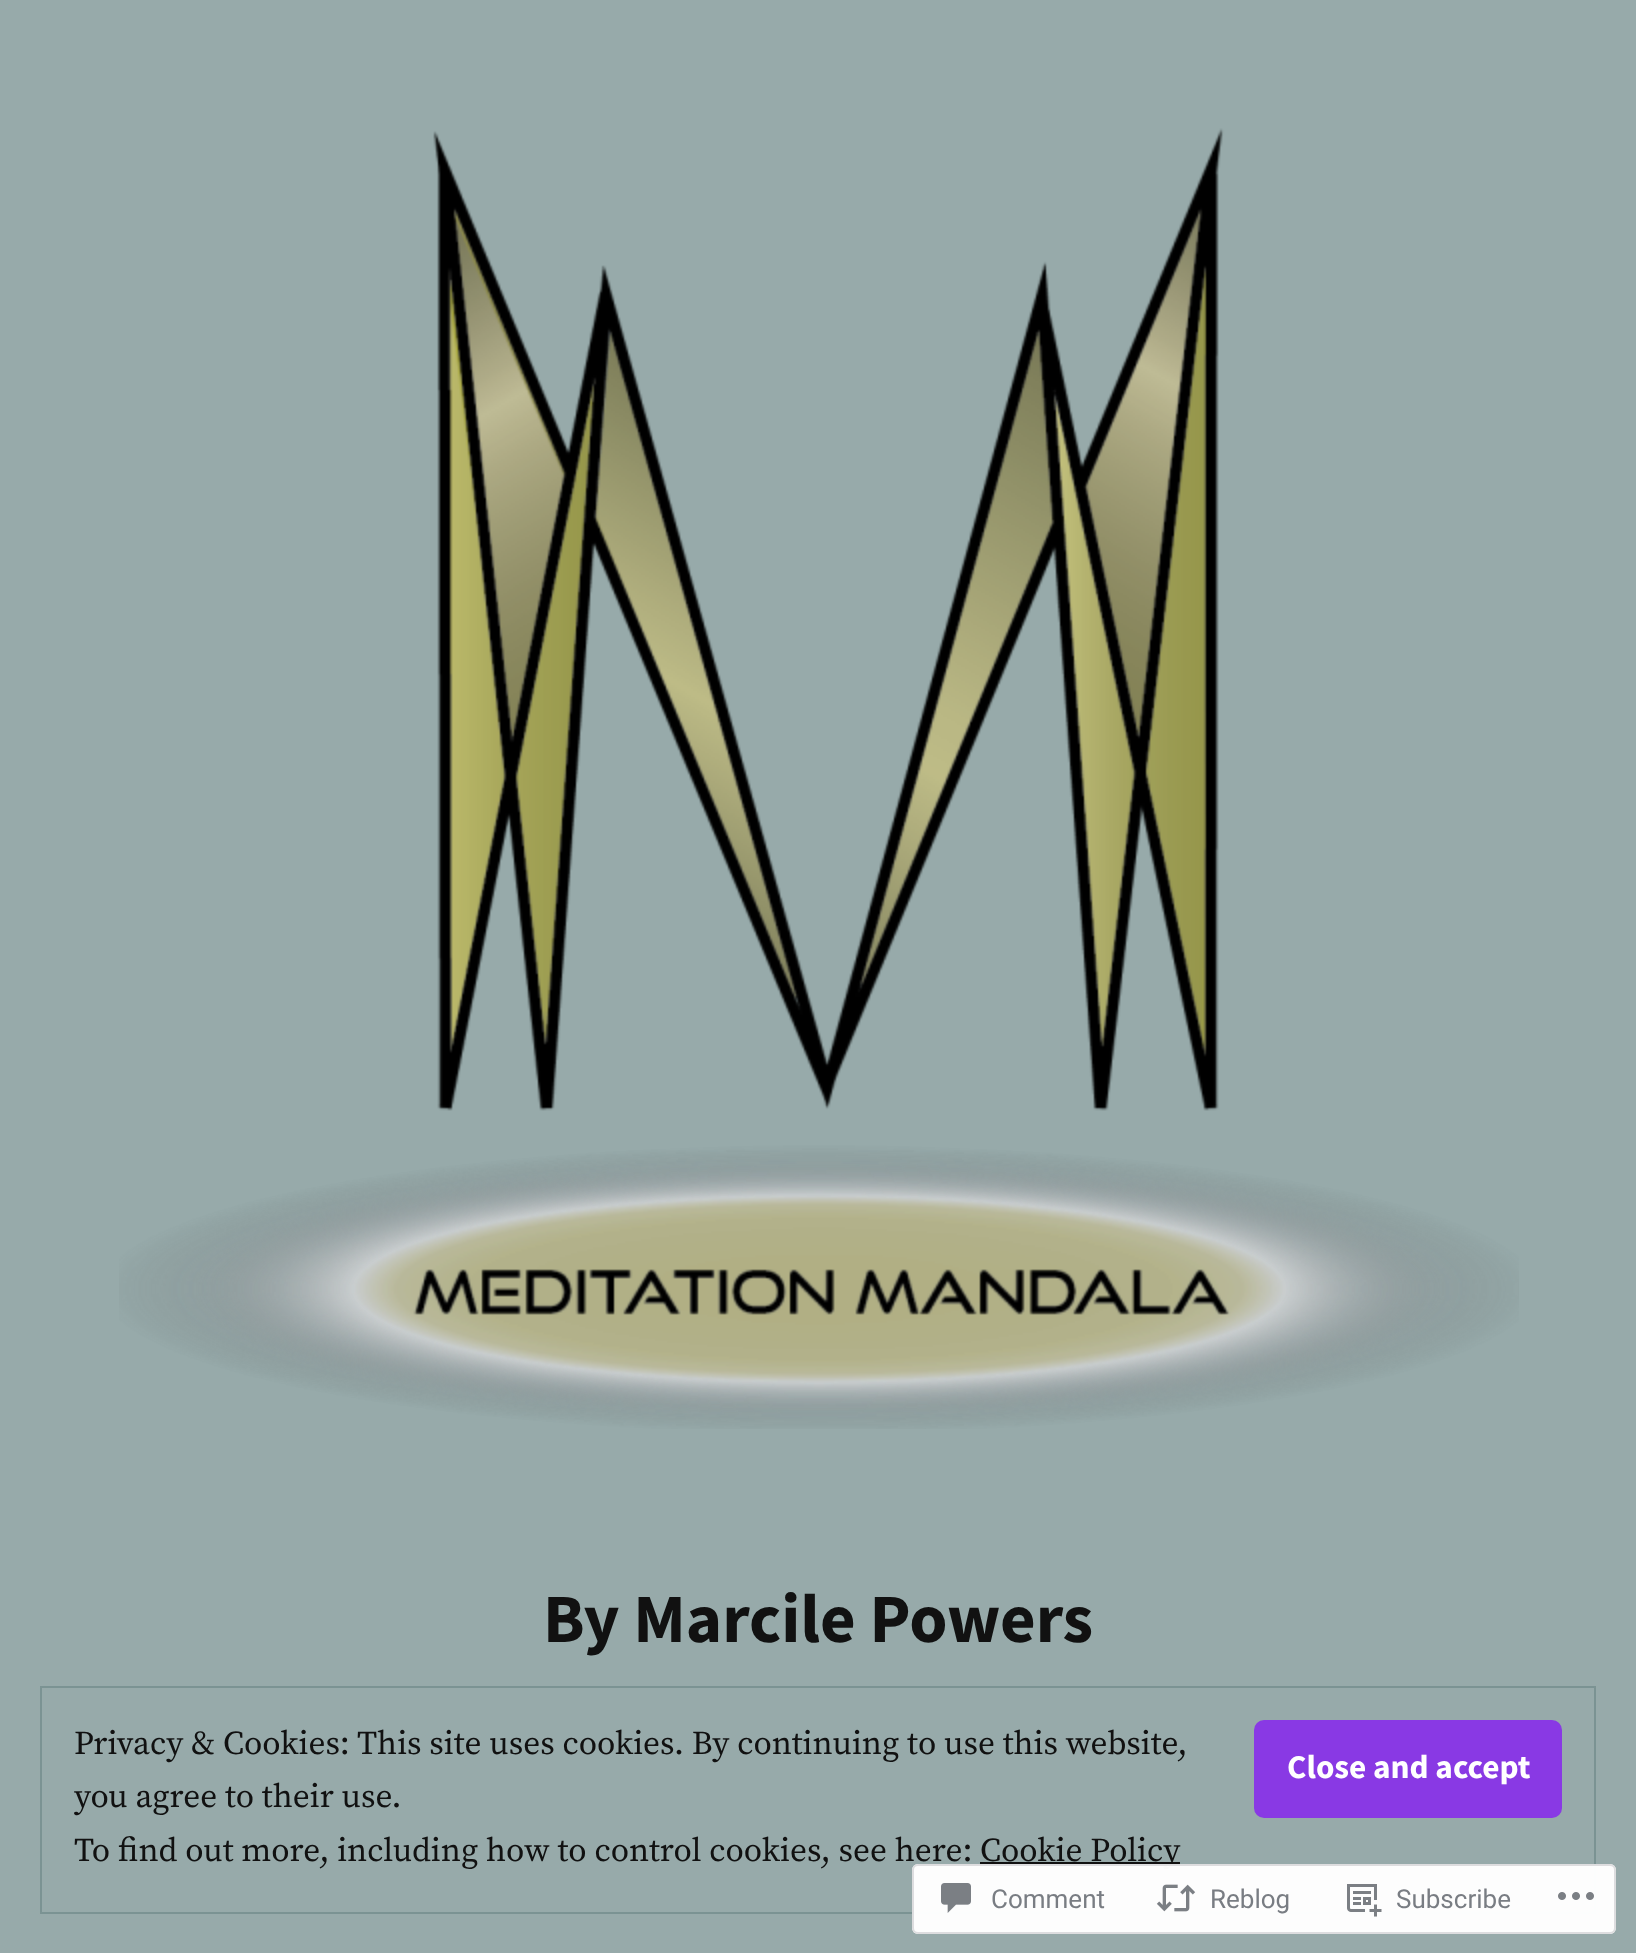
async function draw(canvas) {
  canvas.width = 1636;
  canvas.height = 1953;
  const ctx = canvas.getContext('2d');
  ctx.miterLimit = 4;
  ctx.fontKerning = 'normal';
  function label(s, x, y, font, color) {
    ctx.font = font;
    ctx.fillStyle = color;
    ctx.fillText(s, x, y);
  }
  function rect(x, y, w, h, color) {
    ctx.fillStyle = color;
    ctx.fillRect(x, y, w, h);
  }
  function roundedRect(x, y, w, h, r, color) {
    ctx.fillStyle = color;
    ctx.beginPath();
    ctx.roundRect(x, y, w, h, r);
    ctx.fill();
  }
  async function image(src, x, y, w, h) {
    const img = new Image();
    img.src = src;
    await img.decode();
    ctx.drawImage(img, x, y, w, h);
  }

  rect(0, 0, 1636, 1953, '#97aaaa');
  await image('assets/img1.png', 119, 128, 1400, 1301);
  label('By Marcile Powers', 543, 1642, 'bold 69px Source Sans Pro', '#111');
  ctx.strokeStyle = '#7b9393';
  ctx.lineWidth = 2;
  ctx.strokeRect(41, 1687, 1554, 226);
  label('Privacy & Cookies: This site uses cookies. By continuing to use this website,', 74, 1754, '33.35px Source Serif Pro', '#111');
  roundedRect(1254, 1720, 308, 98, 10, '#8939e4');
  label('Close and accept', 1287, 1778, 'bold 33.35px Source Sans Pro', '#fff');
  label('you agree to their use.', 74, 1807, '33.35px Source Serif Pro', '#111');
  label('To find out more, including how to control cookies, see here:', 74, 1861, '33.35px Source Serif Pro', '#111');
  rect(980, 1862, 200, 2, '#111');
  label('Cookie Policy', 980, 1861, '33.35px Source Serif Pro', '#111');
  roundedRect(912, 1864, 704, 70, 6, '#fffffffa');
  ctx.beginPath();
  ctx.roundRect(913, 1865, 702, 68, 5);
  ctx.strokeStyle = '#dcdcdefa';
  ctx.stroke();
  await image('assets/img2.png', 941, 1883, 30, 30);
  label('Comment', 991, 1908, '26px Roboto', '#797d83');
  await image('assets/img3.png', 1156, 1884, 40, 28);
  label('Reblog', 1210, 1908, '26px Roboto', '#797d83');
  await image('assets/img4.png', 1347, 1884, 35, 33);
  label('Subscribe', 1396, 1908, '26px Roboto', '#797d83');
  await image('assets/img5.png', 1558, 1892, 36, 8);
}

draw(document.querySelector('canvas'));
